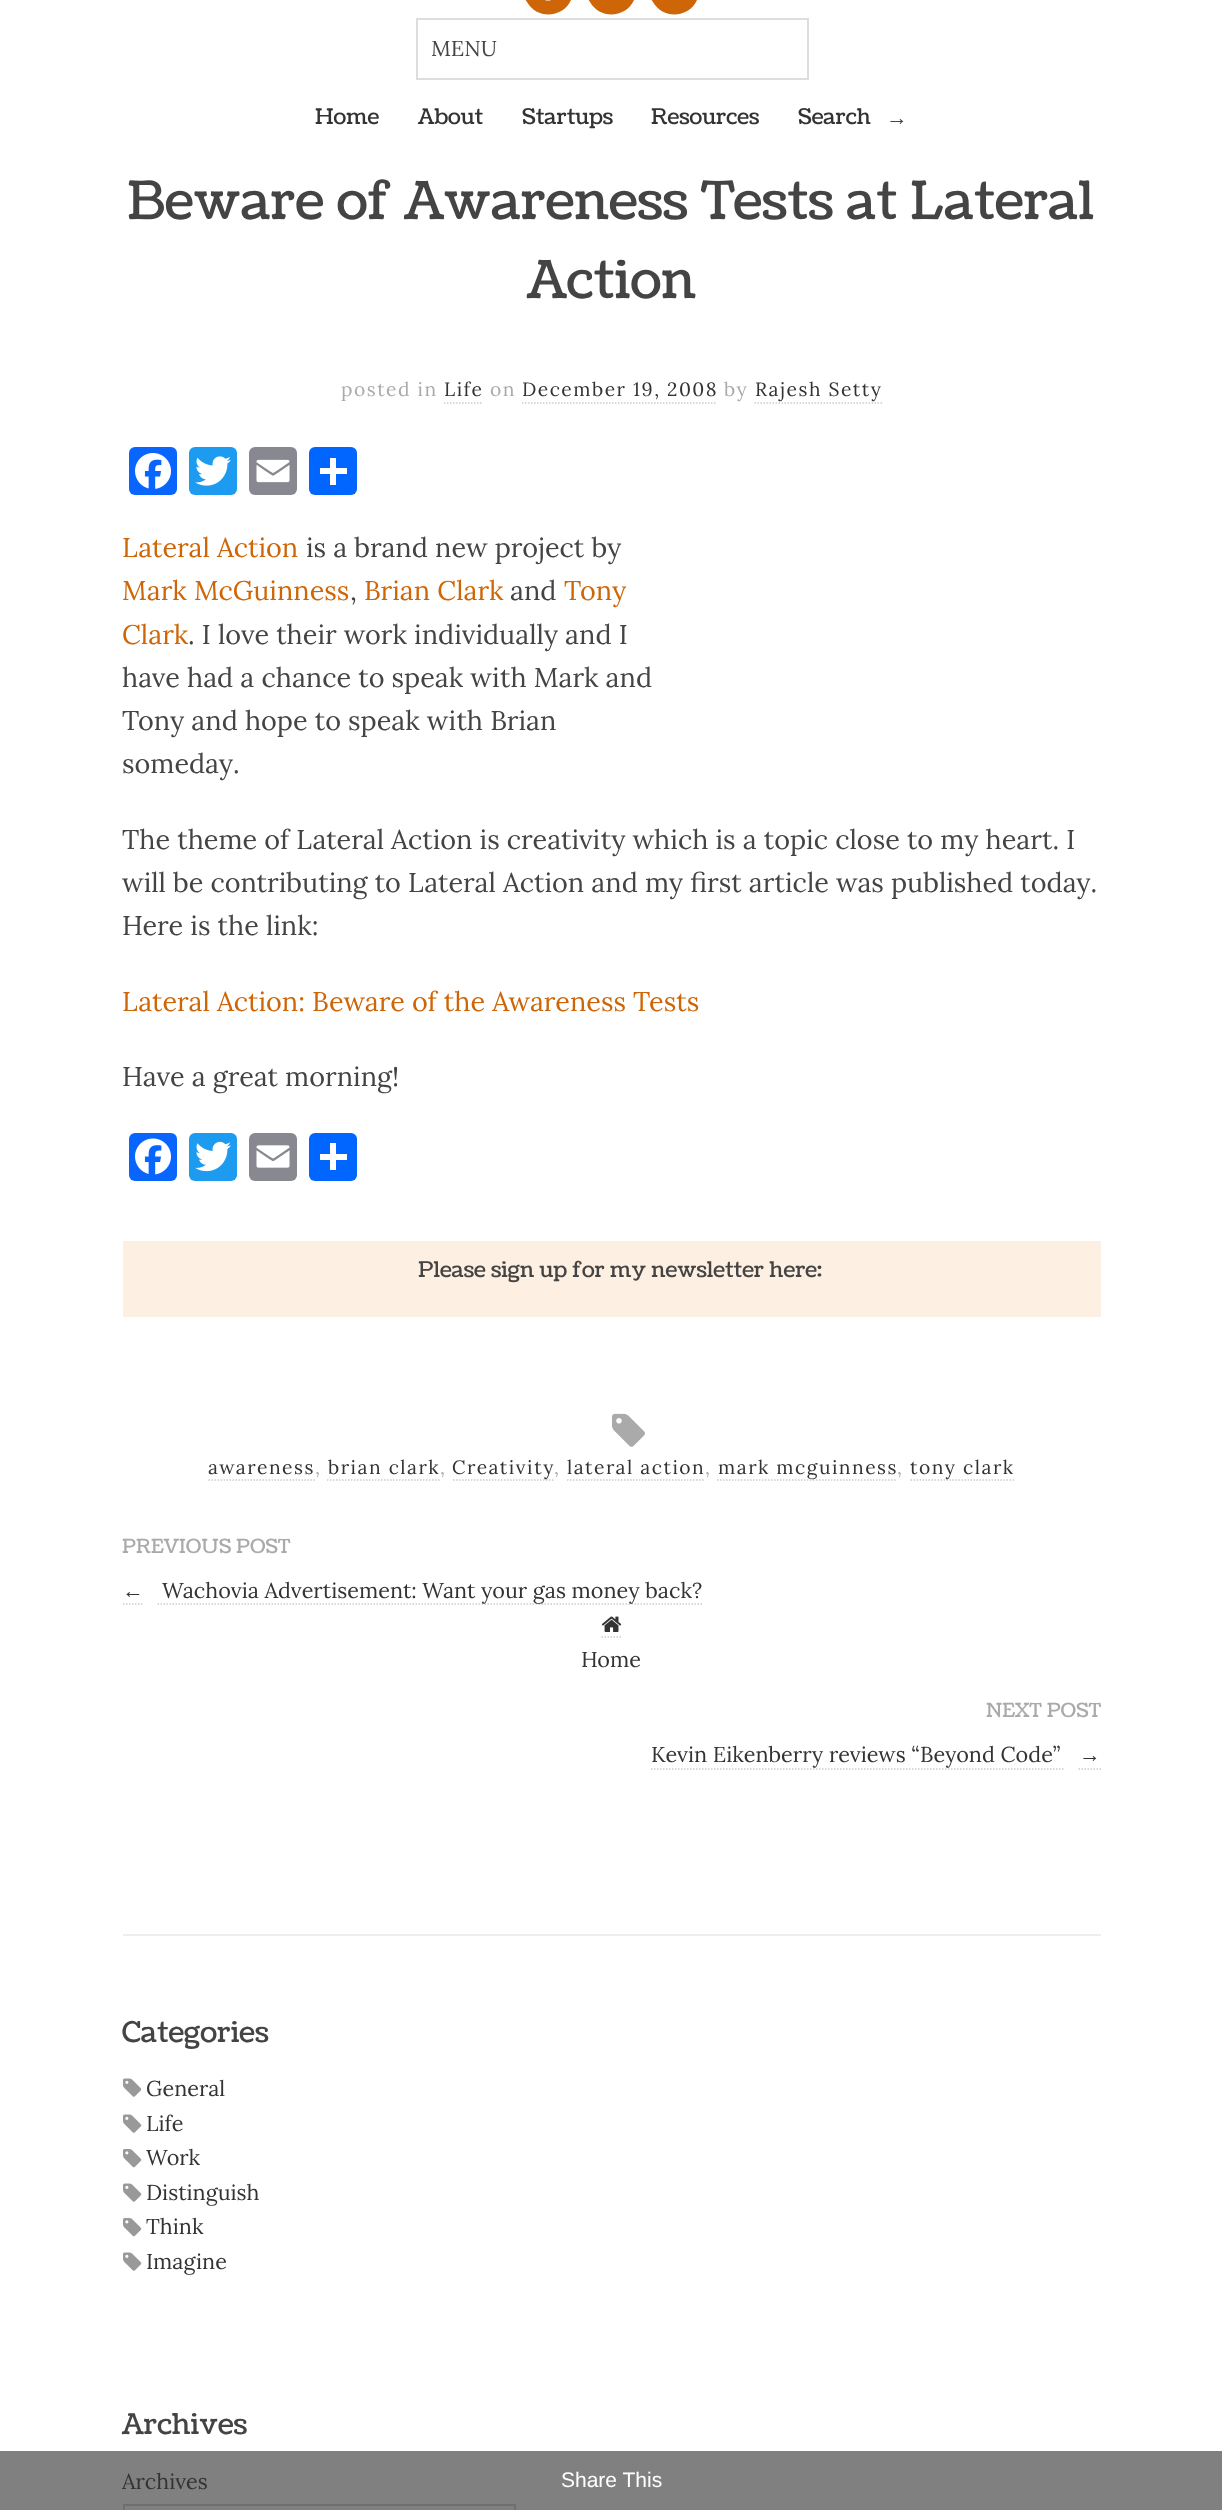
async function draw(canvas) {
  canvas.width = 1222;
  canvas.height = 2510;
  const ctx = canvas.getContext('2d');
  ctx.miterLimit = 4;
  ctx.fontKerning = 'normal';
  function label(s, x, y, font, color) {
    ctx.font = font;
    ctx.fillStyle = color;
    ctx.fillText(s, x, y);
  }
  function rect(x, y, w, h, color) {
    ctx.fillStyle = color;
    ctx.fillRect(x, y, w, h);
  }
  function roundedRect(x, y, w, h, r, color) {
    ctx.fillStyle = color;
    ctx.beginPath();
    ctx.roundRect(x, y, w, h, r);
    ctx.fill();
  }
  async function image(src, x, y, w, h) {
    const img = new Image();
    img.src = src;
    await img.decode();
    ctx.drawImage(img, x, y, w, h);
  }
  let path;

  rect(0, 0, 1222, 2510, '#fff');
  rect(0, 2451, 1222, 59, '#808080');
  ctx.fillStyle = '#ce6607';
  path = new Path2D('M570-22C572-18 573-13 573-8C571 16 539 23 527 2C524-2 523-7 524-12C525-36 557-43 570-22Z');
  ctx.fill(path);
  await image('assets/img1.png', 545, 0, 6, 1);
  path = new Path2D('M633-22C635-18 636-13 636-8C634 16 602 23 590 2C587-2 586-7 587-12C588-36 620-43 633-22Z');
  ctx.fill(path);
  path = new Path2D('M696-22C698-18 699-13 699-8C697 16 665 23 653 2C650-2 649-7 650-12C651-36 683-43 696-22Z');
  ctx.fill(path);
  ctx.strokeStyle = '#ddd';
  ctx.lineWidth = 2;
  ctx.strokeRect(417, 19, 391, 60);
  label('MENU', 431, 56, '21.6px Lora', '#444');
  label('Home', 315, 124, '21.6px Coustard', '#333');
  label('About', 418, 124, '21.6px Coustard', '#333');
  label('Startups', 522, 124, '21.6px Coustard', '#333');
  label('Resources', 651, 124, '21.6px Coustard', '#333');
  label('Search', 798, 124, '21.6px Coustard', '#333');
  label('→', 886, 125, '21.6px Liberation Serif', '#444');
  label('Beware of Awareness Tests at Lateral', 127, 219, '52.75px Coustard', '#444');
  label('Action', 527, 298, '52.75px Coustard', '#444');
  ctx.letterSpacing = '1.5px';
  label('posted in', 341, 396, '19.25px Lora', '#aaa');
  label('Life', 444, 396, '19.25px Lora', '#333');
  path = new Path2D('M444 403H483');
  ctx.strokeStyle = '#ccc';
  ctx.lineWidth = 1.5;
  ctx.setLineDash([1.5, 1.5]);
  ctx.stroke(path);
  label('on', 490, 396, '19.25px Lora', '#aaa');
  label('December 19, 2008', 522, 396, '19.25px Lora', '#333');
  path = new Path2D('M522 403H717');
  ctx.stroke(path);
  label('by', 724, 396, '19.25px Lora', '#aaa');
  label('Rajesh Setty', 755, 396, '19.25px Lora', '#333');
  path = new Path2D('M754.5 403H882');
  ctx.stroke(path);
  roundedRect(129, 447, 48, 48, 6, '#0866ff');
  await image('assets/img2.png', 135, 453, 36, 36);
  roundedRect(189, 447, 48, 48, 6, '#1d9bf0');
  await image('assets/img3.png', 195, 456, 36, 30);
  roundedRect(249, 447, 48, 48, 6, '#888990');
  await image('assets/img4.png', 256, 459, 34, 24);
  roundedRect(309, 447, 48, 48, 6, '#0166ff');
  rect(330, 458, 6, 27, '#fff');
  rect(320, 468, 27, 6, '#fff');
  ctx.letterSpacing = '0px';
  label('Lateral Action', 122, 557, '27px Lora', '#ce6607');
  label('is a brand new project by', 306, 557, '27px Lora', '#444');
  label('Mark McGuinness', 122, 600, '27px Lora', '#ce6607');
  label(',', 350, 600, '27px Lora', '#444');
  label('Brian Clark', 364, 600, '27px Lora', '#ce6607');
  label('and', 510, 600, '27px Lora', '#444');
  label('Tony', 564, 600, '27px Lora', '#ce6607');
  label('Clark', 122, 644, '27px Lora', '#ce6607');
  label('. I love their work individually and I', 188, 644, '27px Lora', '#444');
  label('have had a chance to speak with Mark and', 122, 687, '27px Lora', '#444');
  label('Tony and hope to speak with Brian', 122, 730, '27px Lora', '#444');
  label('someday.', 122, 773, '27px Lora', '#444');
  label('The theme of Lateral Action is creativity which is a topic close to my heart. I', 122, 849, '27px Lora', '#444');
  label('will be contributing to Lateral Action and my first article was published today.', 122, 892, '27px Lora', '#444');
  label('Here is the link:', 122, 935, '27px Lora', '#444');
  label('Lateral Action: Beware of the Awareness Tests', 122, 1011, '27px Lora', '#ce6607');
  label('Have a great morning!', 122, 1086, '27px Lora', '#444');
  roundedRect(129, 1133, 48, 48, 6, '#0866ff');
  await image('assets/img5.png', 135, 1138, 36, 37);
  roundedRect(189, 1133, 48, 48, 6, '#1d9bf0');
  await image('assets/img6.png', 195, 1141, 36, 31);
  roundedRect(249, 1133, 48, 48, 6, '#888990');
  await image('assets/img7.png', 256, 1145, 34, 23);
  roundedRect(309, 1133, 48, 48, 6, '#0166ff');
  rect(330, 1143, 6, 27, '#fff');
  rect(320, 1154, 27, 6, '#fff');
  rect(123, 1241, 978, 76, '#fdefe1');
  label('Please sign up for my newsletter here:', 418, 1277, '21.6px Coustard', '#444');
  await image('assets/img8.png', 612, 1413, 33, 34);
  ctx.letterSpacing = '1.5px';
  label('awareness', 208, 1474, '19.25px Lora', '#333');
  path = new Path2D('M208.5 1480H315');
  ctx.stroke(path);
  label(',', 315, 1474, '19.25px Lora', '#aaa');
  label('brian clark', 328, 1474, '19.25px Lora', '#333');
  path = new Path2D('M327 1480H439.5');
  ctx.stroke(path);
  label(',', 440, 1474, '19.25px Lora', '#aaa');
  path = new Path2D('M453 1480H553.5');
  ctx.stroke(path);
  label('Creativity', 452, 1474, '19.25px Lora', '#333');
  label(',', 554, 1474, '19.25px Lora', '#aaa');
  label('lateral action', 567, 1474, '19.25px Lora', '#333');
  path = new Path2D('M567 1480H705');
  ctx.stroke(path);
  label(',', 705, 1474, '19.25px Lora', '#aaa');
  path = new Path2D('M717 1480H897');
  ctx.stroke(path);
  label('mark mcguinness', 718, 1474, '19.25px Lora', '#333');
  label(',', 897, 1474, '19.25px Lora', '#aaa');
  path = new Path2D('M910.5 1480H1014');
  ctx.stroke(path);
  label('tony clark', 910, 1474, '19.25px Lora', '#333');
  ctx.letterSpacing = '0px';
  label('PREVIOUS POST', 122, 1553, '19.5px Coustard', '#aaa');
  label('←', 122, 1598, '21.6px Liberation Serif', '#333');
  path = new Path2D('M123 1604H144');
  ctx.stroke(path);
  path = new Path2D('M157.5 1604H702');
  ctx.stroke(path);
  label('Wachovia Advertisement: Want your gas money back?', 162, 1598, '21.6px Lora', '#333');
  path = new Path2D('M601.5 1637H621');
  ctx.stroke(path);
  await image('assets/img9.png', 601, 1616, 21, 16);
  label('Home', 581, 1667, '21.6px Lora', '#333');
  label('NEXT POST', 986, 1717, '19.5px Coustard', '#aaa');
  label('Kevin Eikenberry reviews “Beyond Code”', 651, 1762, '21.6px Lora', '#333');
  path = new Path2D('M651 1769H1065');
  ctx.stroke(path);
  label('→', 1079, 1762, '21.6px Liberation Serif', '#333');
  path = new Path2D('M1078.5 1769H1101');
  ctx.stroke(path);
  rect(123, 1934, 978, 2, '#eee');
  label('Categories', 122, 2042, '28.75px Coustard', '#444');
  await image('assets/img10.png', 123, 2078, 19, 19);
  label('General', 146, 2096, '21.6px Lora', '#333');
  await image('assets/img10.png', 123, 2114, 19, 19);
  label('Life', 146, 2131, '21.6px Lora', '#333');
  await image('assets/img11.png', 123, 2149, 19, 19);
  label('Work', 146, 2165, '21.6px Lora', '#333');
  await image('assets/img10.png', 123, 2183, 19, 19);
  label('Distinguish', 146, 2200, '21.6px Lora', '#333');
  await image('assets/img11.png', 123, 2218, 19, 19);
  label('Think', 146, 2234, '21.6px Lora', '#333');
  await image('assets/img10.png', 123, 2252, 19, 19);
  label('Imagine', 146, 2269, '21.6px Lora', '#333');
  label('Archives', 122, 2434, '28.75px Coustard', '#444');
  label('Archives', 122, 2489, '21.6px Lora', '#333');
  ctx.strokeStyle = '#6f6f6f';
  ctx.lineWidth = 2;
  ctx.setLineDash([]);
  ctx.strokeRect(124, 2505, 391, 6);
  label('Share This', 561, 2487, '21px Liberation Sans', '#fff');
}

draw(document.querySelector('canvas'));
